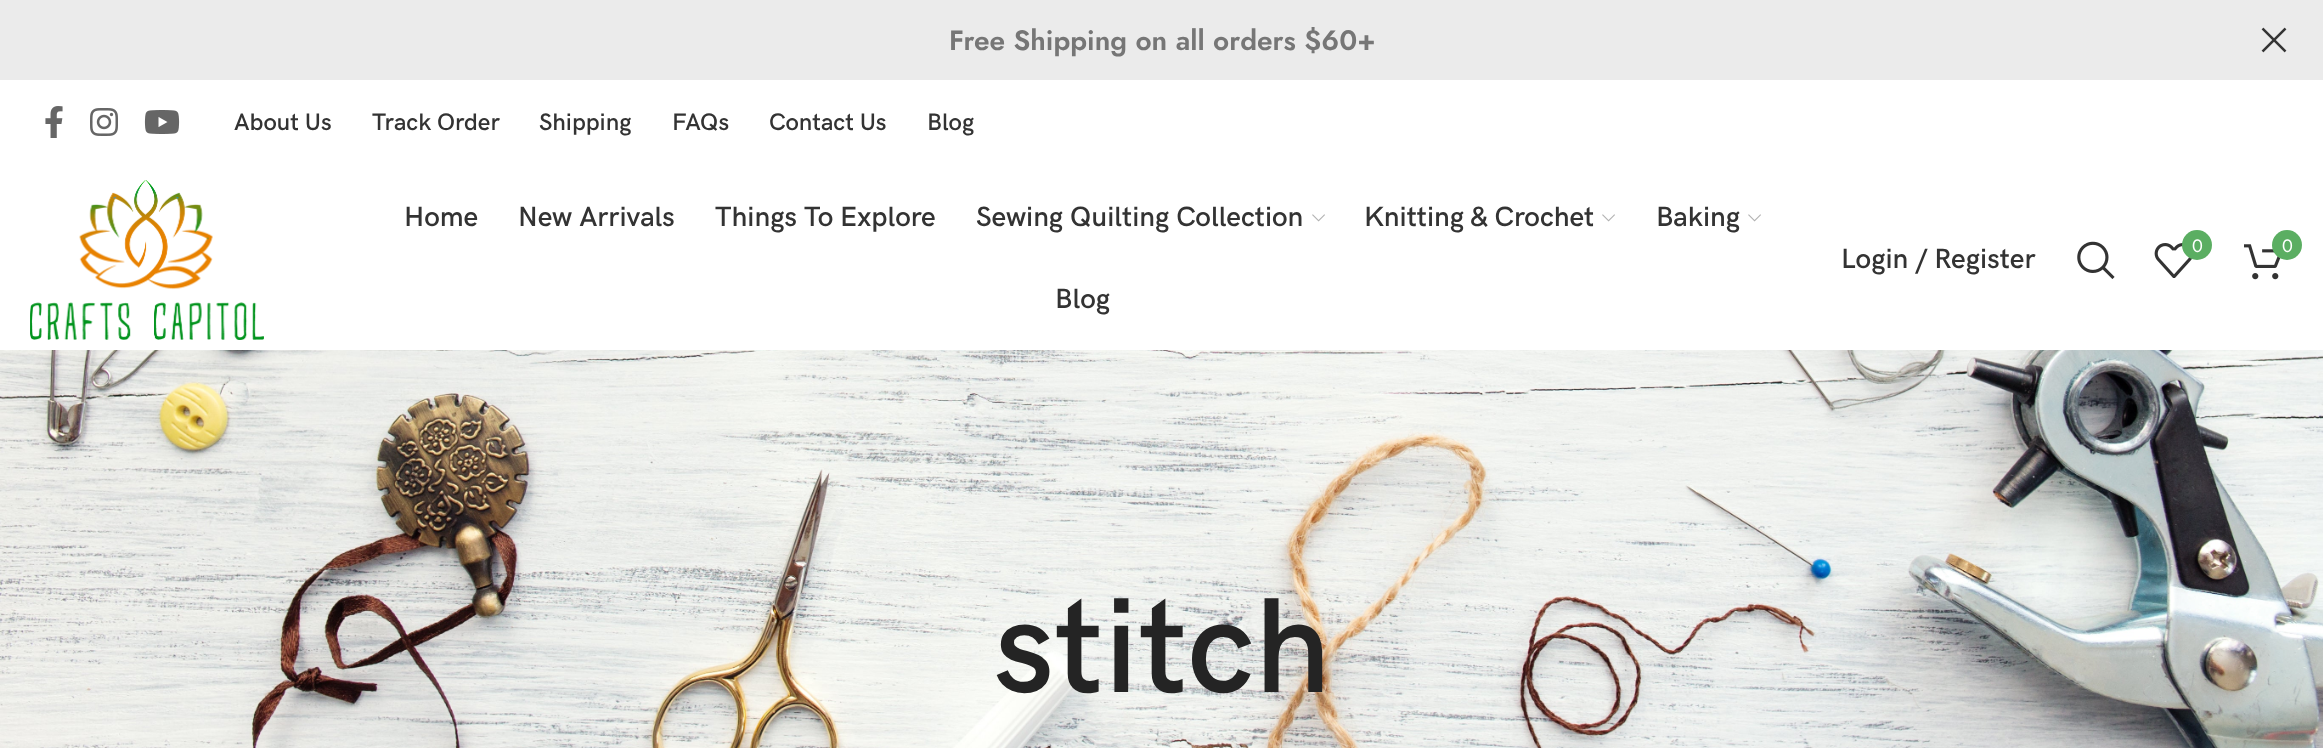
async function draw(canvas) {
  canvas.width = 2323;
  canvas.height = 748;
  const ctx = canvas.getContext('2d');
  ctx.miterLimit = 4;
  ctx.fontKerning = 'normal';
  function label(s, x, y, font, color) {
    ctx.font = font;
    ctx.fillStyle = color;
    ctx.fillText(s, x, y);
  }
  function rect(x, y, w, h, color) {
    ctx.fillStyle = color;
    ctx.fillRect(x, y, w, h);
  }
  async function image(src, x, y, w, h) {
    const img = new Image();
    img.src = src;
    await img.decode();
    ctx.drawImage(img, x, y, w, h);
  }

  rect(0, 0, 2323, 748, '#fff');
  rect(0, 0, 2323, 80, '#ebebeb');
  label('Free Shipping on all orders $60+', 949, 50, '600 28px Jost', '#767676');
  await image('assets/img1.png', 2261, 27, 26, 26);
  await image('assets/img2.png', 45, 106, 18, 32);
  await image('assets/img3.png', 90, 108, 28, 28);
  await image('assets/img4.png', 144, 110, 36, 24);
  label('About Us', 234, 130, '600 24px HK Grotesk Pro', '#333');
  label('Track Order', 372, 130, '600 24px HK Grotesk Pro', '#333');
  label('Shipping', 539, 130, '600 24px HK Grotesk Pro', '#333');
  label('FAQs', 672, 130, '600 24px HK Grotesk Pro', '#333');
  label('Contact Us', 769, 130, '600 24px HK Grotesk Pro', '#333');
  label('Blog', 927, 130, '600 24px HK Grotesk Pro', '#333');
  await image('assets/img5.png', 30, 180, 234, 160);
  label('Home', 404, 226, '600 28px HK Grotesk Pro', '#333');
  label('New Arrivals', 518, 226, '600 28px HK Grotesk Pro', '#333');
  label('Things To Explore', 715, 226, '600 28px HK Grotesk Pro', '#333');
  label('Sewing Quilting Collection', 976, 226, '600 28px HK Grotesk Pro', '#333');
  await image('assets/img6.png', 1312, 214, 13, 8);
  label('Knitting & Crochet', 1364, 226, '600 28px HK Grotesk Pro', '#333');
  await image('assets/img6.png', 1602, 214, 13, 8);
  label('Baking', 1656, 226, '600 28px HK Grotesk Pro', '#333');
  await image('assets/img6.png', 1748, 214, 13, 8);
  label('Blog', 1055, 308, '600 28px HK Grotesk Pro', '#333');
  label('Login / Register', 1841, 268, '600 28px HK Grotesk Pro', '#333');
  await image('assets/img7.png', 2077, 241, 38, 38);
  await image('assets/img8.png', 2154, 243, 38, 35);
  ctx.fillStyle = '#5bae62';
  ctx.beginPath();
  ctx.arc(2197, 245, 15, 0, 2 * Math.PI);
  ctx.fill();
  label('0', 2192, 252, '18px Jost', '#fff');
  await image('assets/img9.png', 2244, 244, 37, 36);
  ctx.fillStyle = '#5bae62';
  ctx.beginPath();
  ctx.arc(2287, 245, 15, 0, 2 * Math.PI);
  ctx.fill();
  label('0', 2282, 252, '18px Jost', '#fff');
  await image('assets/img10.png', 0, 350, 2323, 398);
  label('stitch', 994, 692, '600 136px HK Grotesk Pro', '#242424');
}

draw(document.querySelector('canvas'));
